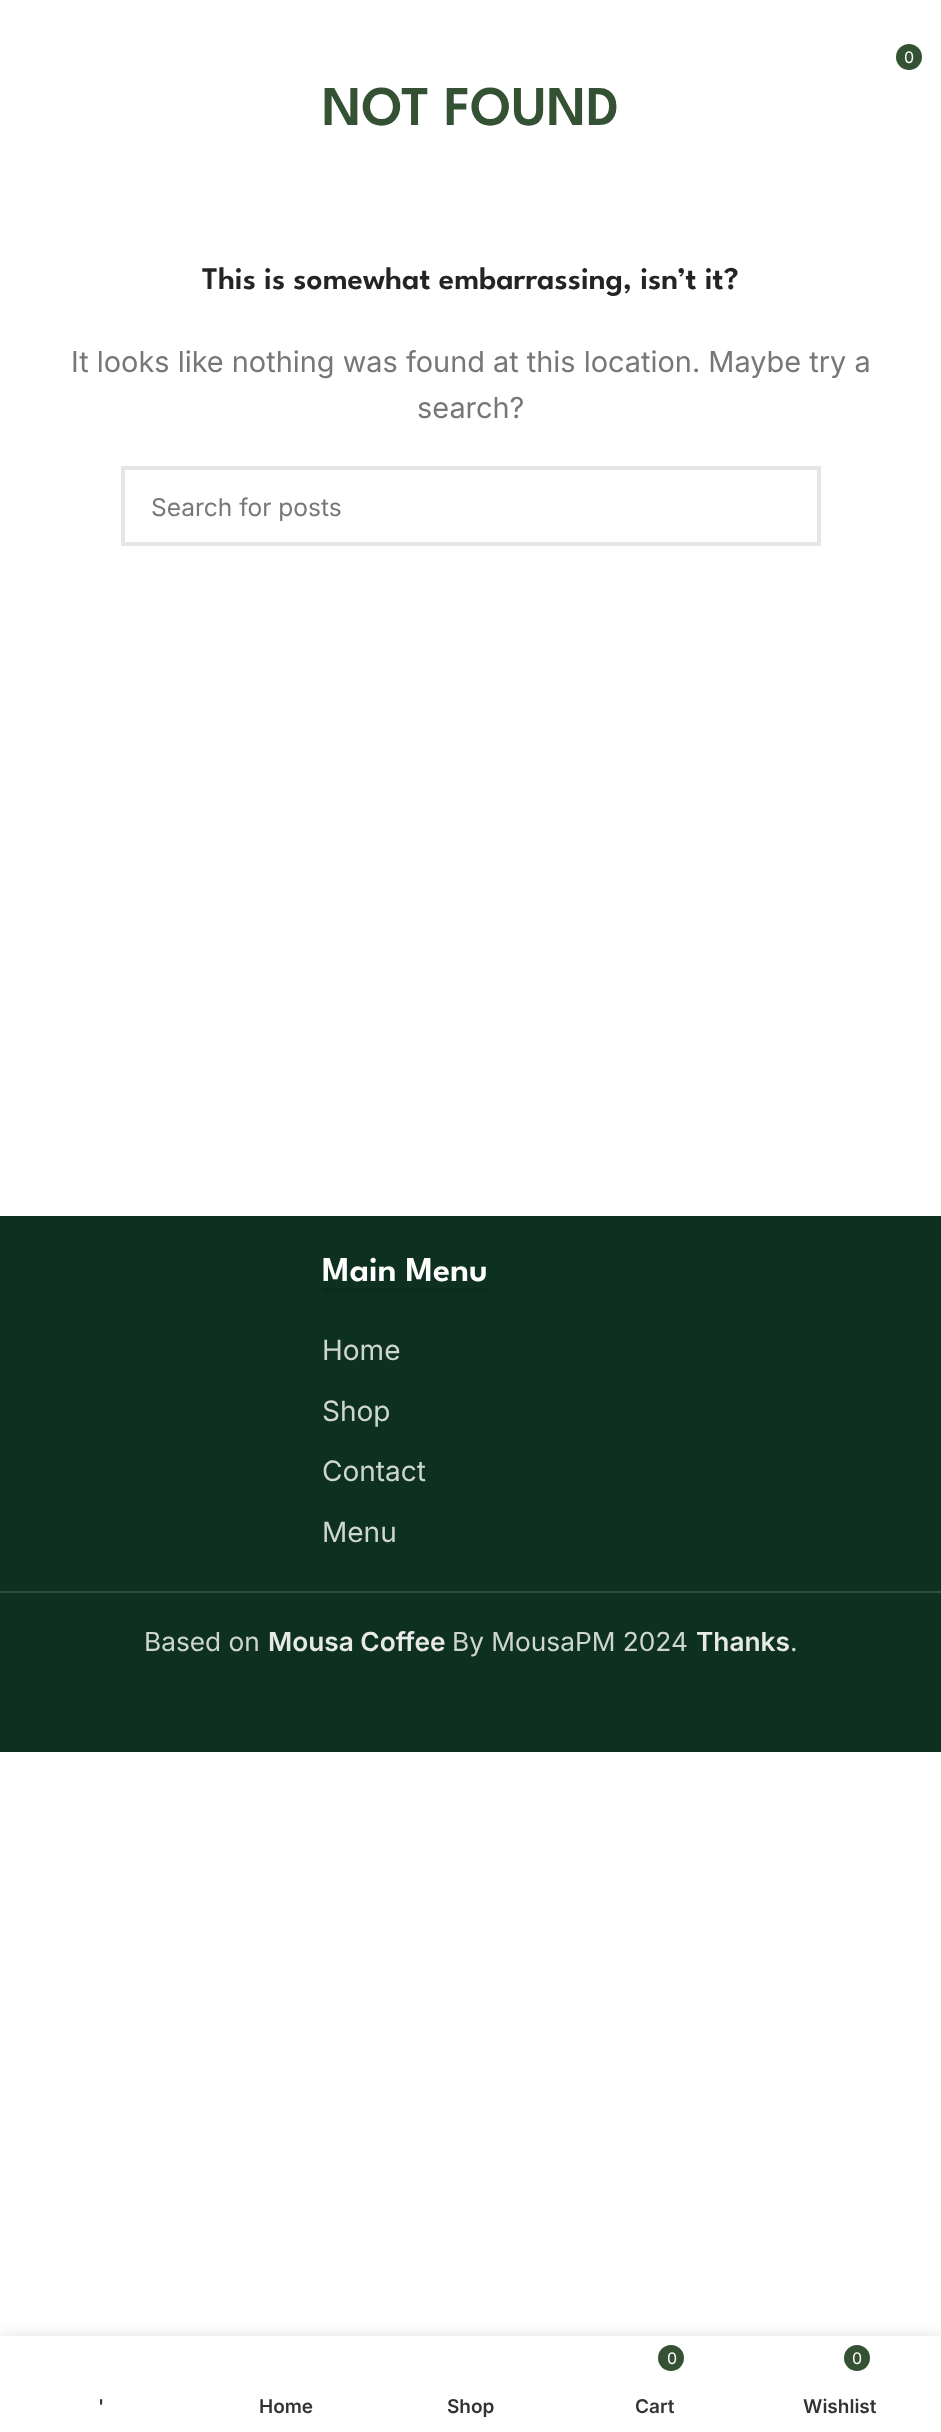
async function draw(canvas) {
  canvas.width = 941;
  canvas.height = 2432;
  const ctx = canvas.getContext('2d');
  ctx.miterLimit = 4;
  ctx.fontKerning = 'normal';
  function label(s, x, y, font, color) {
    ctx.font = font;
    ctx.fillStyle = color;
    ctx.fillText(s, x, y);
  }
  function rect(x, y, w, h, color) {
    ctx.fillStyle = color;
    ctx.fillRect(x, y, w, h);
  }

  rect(0, 0, 941, 2432, '#fff');
  ctx.fillStyle = '#345134';
  ctx.beginPath();
  ctx.arc(909, 57, 13, 0, 2 * Math.PI);
  ctx.fill();
  label('0', 904, 63, '16px Inter', '#fff');
  label('NOT FOUND', 322, 125, '600 56px League Spartan', '#345134');
  label('This is somewhat embarrassing, isn’t it?', 202, 289, '600 31.5px League Spartan', '#242424');
  label('It looks like nothing was found at this location. Maybe try a', 71, 372, '28.9px Inter', '#777');
  label('search?', 417, 418, '28.9px Inter', '#777');
  ctx.strokeStyle = '#e6e6e6';
  ctx.lineWidth = 4;
  ctx.strokeRect(123, 468, 696, 76);
  label('Search for posts', 151, 516, '24.5px Inter', '#777');
  rect(0, 1216, 941, 536, '#0d3020');
  rect(322, 1288, 166, 4, '#0c2b1d');
  label('Main Menu', 322, 1281, '600 35px League Spartan', '#fff');
  label('Home', 322, 1360, '28px Inter', '#cfd6d2');
  label('Shop', 322, 1421, '28px Inter', '#cfd6d2');
  label('Contact', 322, 1481, '28px Inter', '#cfd6d2');
  label('Menu', 322, 1542, '28px Inter', '#cfd6d2');
  rect(0, 1591, 941, 2, '#314f41');
  label('Based on', 144, 1651, '26.25px Inter', '#cfd6d2');
  label('Mousa Coffee', 268, 1651, '600 26.25px Inter', '#e7eae9');
  label('By MousaPM 2024', 452, 1651, '26.25px Inter', '#cfd6d2');
  label('Thanks', 696, 1651, '600 26.25px Inter', '#e7eae9');
  label('.', 790, 1651, '26.25px Inter', '#cfd6d2');
  ctx.fillStyle = '#0000001f';
  ctx.filter = 'blur(8px)';
  ctx.beginPath();
  ctx.rect(0, 2336, 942, 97);
  ctx.fill();
  ctx.filter = 'none';
  rect(0, 2336, 941, 96, '#fff');
  label('\'', 98, 2413, '600 19px Inter', '#333');
  label('Home', 259, 2413, '600 19px Inter', '#333');
  label('Shop', 447, 2413, '600 19px Inter', '#333');
  ctx.fillStyle = '#345134';
  ctx.beginPath();
  ctx.arc(671, 2358, 13, 0, 2 * Math.PI);
  ctx.fill();
  label('0', 667, 2364, '16px Inter', '#fff');
  label('Cart', 635, 2413, '600 19px Inter', '#333');
  ctx.fillStyle = '#345134';
  ctx.beginPath();
  ctx.arc(857, 2358, 13, 0, 2 * Math.PI);
  ctx.fill();
  label('0', 852, 2364, '16px Inter', '#fff');
  label('Wishlist', 803, 2413, '600 19px Inter', '#333');
}

draw(document.querySelector('canvas'));
